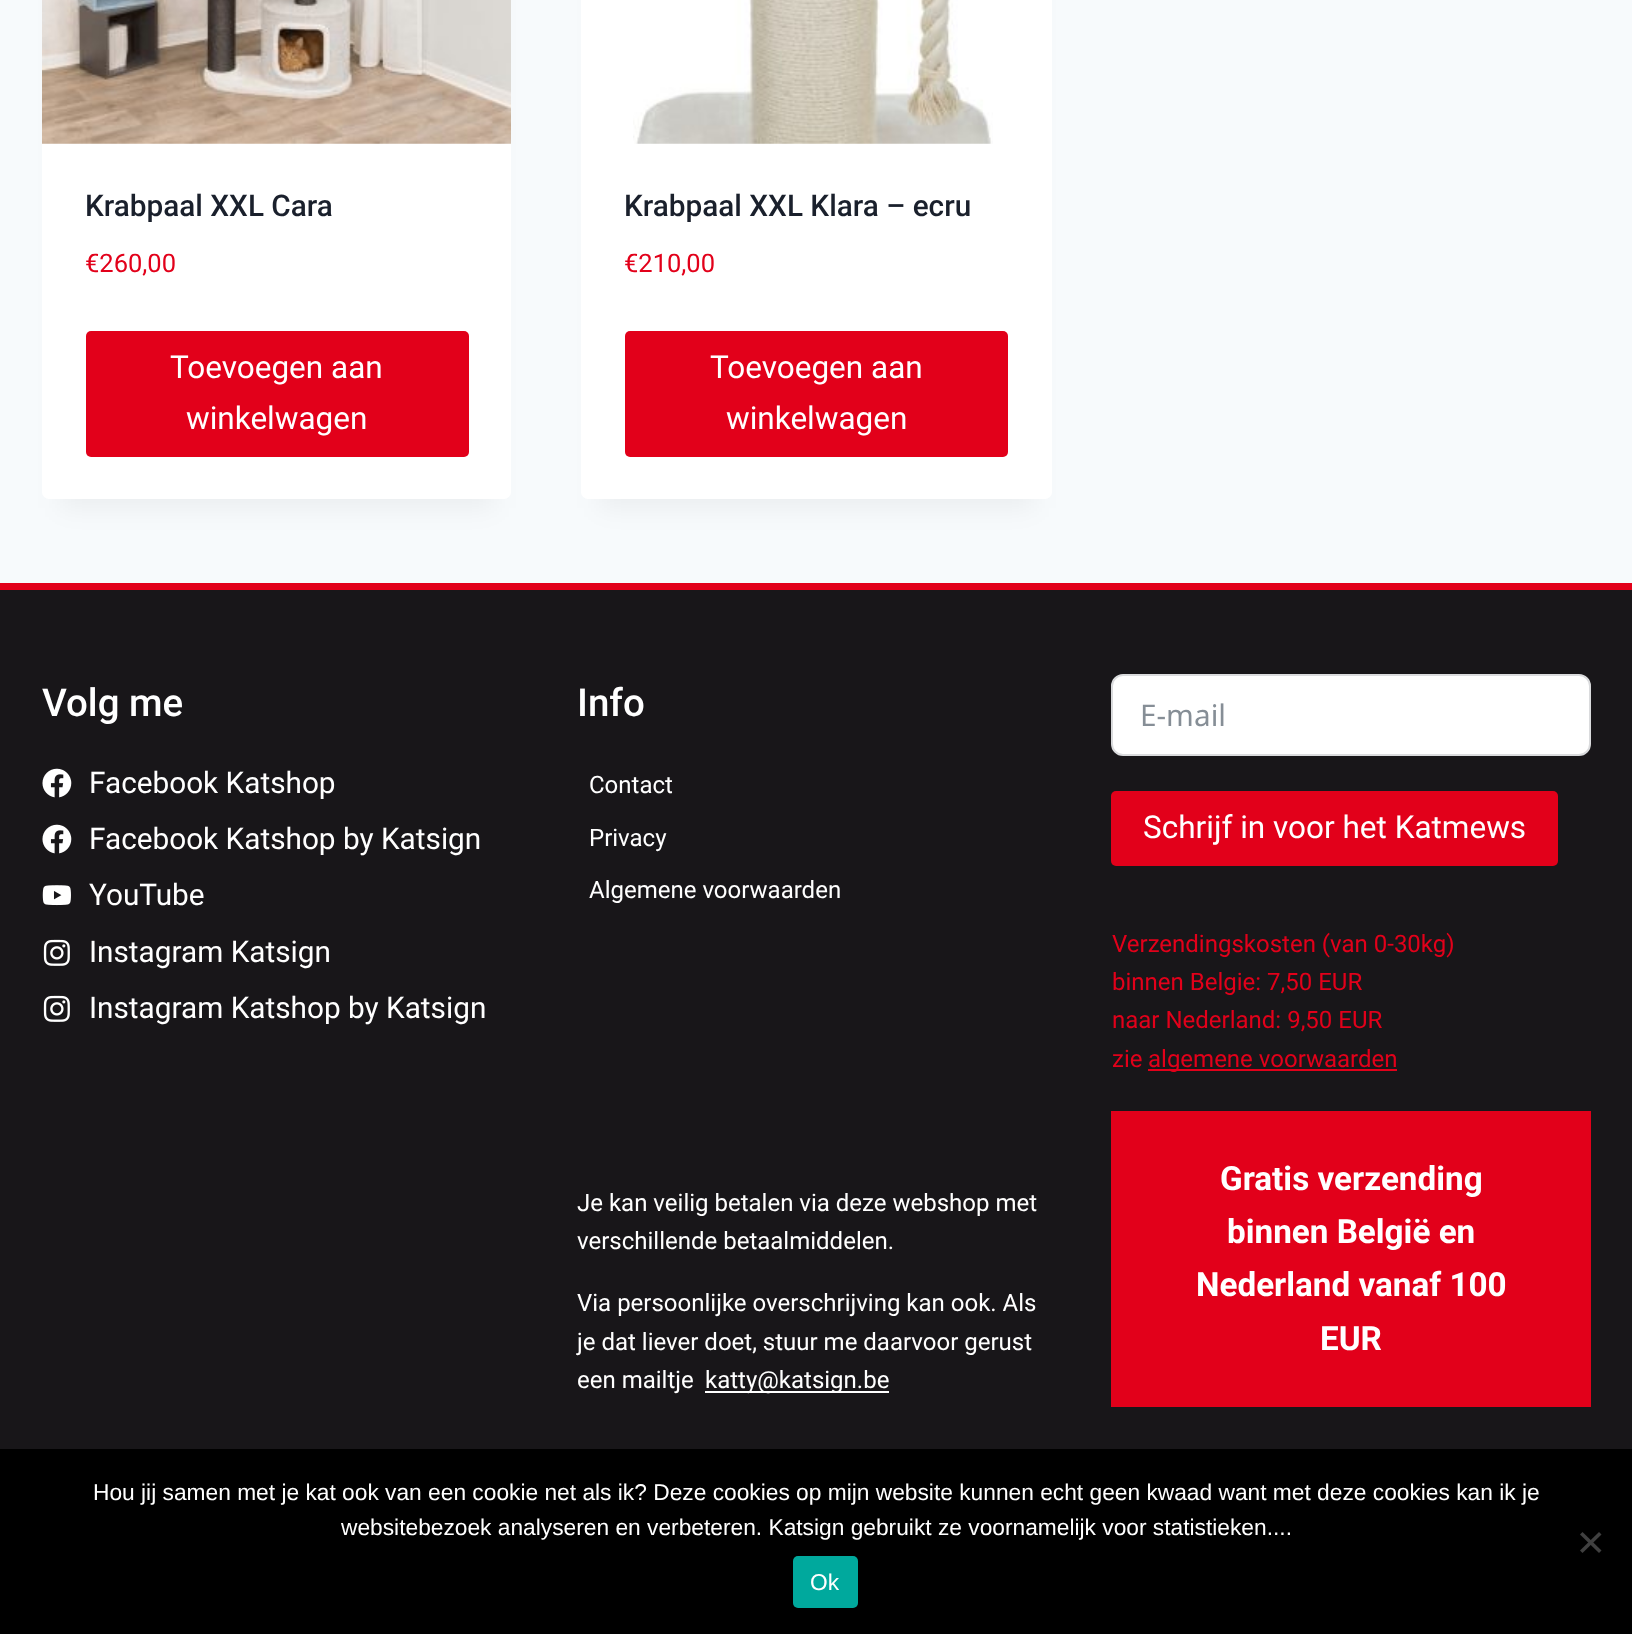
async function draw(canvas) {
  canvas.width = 1632;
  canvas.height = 1634;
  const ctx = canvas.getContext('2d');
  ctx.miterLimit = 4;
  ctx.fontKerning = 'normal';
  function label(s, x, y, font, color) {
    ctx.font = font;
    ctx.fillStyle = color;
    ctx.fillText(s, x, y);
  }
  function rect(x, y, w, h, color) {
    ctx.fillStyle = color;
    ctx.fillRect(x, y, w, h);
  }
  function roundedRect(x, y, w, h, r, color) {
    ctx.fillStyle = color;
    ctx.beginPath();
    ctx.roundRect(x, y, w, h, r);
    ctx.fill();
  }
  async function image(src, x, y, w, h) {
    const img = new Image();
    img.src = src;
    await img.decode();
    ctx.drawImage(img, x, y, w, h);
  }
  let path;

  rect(0, 0, 1632, 1634, '#f7fafc');
  ctx.fillStyle = '#0000000d';
  ctx.filter = 'blur(13px)';
  ctx.beginPath();
  ctx.rect(60, -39, 434, 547);
  ctx.fill();
  ctx.filter = 'none';
  roundedRect(42, -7, 469, 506, 7, '#fff');
  await image('assets/img1.png', 42, 0, 469, 144);
  label('Krabpaal XXL Cara', 85, 216, '500 29.75px Roboto', '#1a202c');
  label('€260,00', 85, 272, '25.5px Roboto', '#e2001a');
  roundedRect(86, 331, 383, 126, 5, '#e2001a');
  label('Toevoegen aan', 170, 378, '31.5px Roboto', '#fff');
  label('winkelwagen', 186, 429, '31.5px Roboto', '#fff');
  ctx.fillStyle = '#0000000d';
  ctx.filter = 'blur(13px)';
  ctx.beginPath();
  ctx.rect(599, -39, 435, 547);
  ctx.fill();
  ctx.filter = 'none';
  roundedRect(581, -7, 471, 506, 7, '#fff');
  await image('assets/img2.png', 633, 0, 360, 144);
  label('Krabpaal XXL Klara – ecru', 624, 216, '500 29.75px Roboto', '#1a202c');
  label('€210,00', 624, 272, '25.5px Roboto', '#e2001a');
  roundedRect(625, 331, 383, 126, 5, '#e2001a');
  label('Toevoegen aan', 710, 378, '31.5px Roboto', '#fff');
  label('winkelwagen', 726, 429, '31.5px Roboto', '#fff');
  rect(0, 590, 1632, 859, '#181619');
  rect(0, 583, 1632, 7, '#e2001a');
  label('Volg me', 42, 716, '500 38.5px Roboto', '#fff');
  await image('assets/img3.png', 42, 768, 30, 30);
  label('Facebook Katshop', 89, 793, '29.75px Roboto', '#fff');
  await image('assets/img3.png', 42, 824, 30, 30);
  label('Facebook Katshop by Katsign', 89, 849, '29.75px Roboto', '#fff');
  await image('assets/img4.png', 42, 885, 29, 21);
  label('YouTube', 89, 905, '29.75px Roboto', '#fff');
  await image('assets/img5.png', 43, 939, 27, 27);
  label('Instagram Katsign', 89, 962, '29.75px Roboto', '#fff');
  await image('assets/img5.png', 43, 995, 27, 27);
  label('Instagram Katshop by Katsign', 89, 1018, '29.75px Roboto', '#fff');
  label('Info', 577, 716, '500 38.5px Roboto', '#fff');
  label('Contact', 589, 793, '24px Roboto', '#fff');
  label('Privacy', 589, 846, '24px Roboto', '#fff');
  label('Algemene voorwaarden', 589, 898, '24px Roboto', '#fff');
  label('Je kan veilig betalen via deze webshop met', 577, 1211, '24px Roboto', '#fff');
  label('verschillende betaalmiddelen.', 577, 1249, '24px Roboto', '#fff');
  label('Via persoonlijke overschrijving kan ook. Als', 577, 1311, '24px Roboto', '#fff');
  label('je dat liever doet, stuur me daarvoor gerust', 577, 1350, '24px Roboto', '#fff');
  label('een mailtje', 577, 1388, '24px Roboto', '#fff');
  rect(705, 1391, 184, 2, '#fff');
  label('katty@katsign.be', 705, 1388, '24px Roboto', '#fff');
  ctx.beginPath();
  ctx.roundRect(1112, 675, 478, 80, 11);
  ctx.fill();
  ctx.strokeStyle = '#dadbdd';
  ctx.lineWidth = 2;
  ctx.stroke();
  label('E-mail', 1140, 726, '29.75px Noto Sans', '#868e96');
  roundedRect(1111, 791, 447, 75, 5, '#e2001a');
  label('Schrijf in voor het Katmews', 1143, 838, '31.5px Roboto', '#fff');
  label('Verzendingskosten (van 0-30kg)', 1112, 952, '24px Roboto', '#e2001a');
  label('binnen Belgie: 7,50 EUR', 1112, 990, '24px Roboto', '#e2001a');
  label('naar Nederland: 9,50 EUR', 1112, 1028, '24px Roboto', '#e2001a');
  label('zie', 1112, 1067, '24px Roboto', '#e2001a');
  rect(1148, 1069, 249, 2, '#e2001a');
  label('algemene voorwaarden', 1148, 1067, '24px Roboto', '#e2001a');
  rect(1111, 1111, 480, 296, '#e2001a');
  label('Gratis verzending', 1220, 1190, 'bold 33.25px Roboto', '#fff');
  label('binnen België en', 1227, 1243, 'bold 33.25px Roboto', '#fff');
  label('Nederland vanaf 100', 1196, 1296, 'bold 33.25px Roboto', '#fff');
  label('EUR', 1320, 1350, 'bold 33.25px Roboto', '#fff');
  rect(0, 1449, 1632, 185, '#000');
  label('Hou jij samen met je kat ook van een cookie net als ik? Deze cookies op mijn website kunnen echt geen kwaad want met deze cookies kan ik je', 93, 1500, '22.75px Liberation Sans', '#fff');
  label('websitebezoek analyseren en verbeteren. Katsign gebruikt ze voornamelijk voor statistieken....', 341, 1535, '22.75px Liberation Sans', '#fff');
  ctx.fillStyle = '#404040';
  path = new Path2D('M1599 1532L1601.5 1534.5L1582.5 1553L1580 1550.5Z');
  ctx.fill(path);
  path = new Path2D('M1580 1534.5L1582.5 1532L1601.5 1550.5L1599 1553Z');
  ctx.fill(path);
  roundedRect(793, 1556, 65, 52, 5, '#00a99d');
  label('Ok', 810, 1590, '22.75px Liberation Sans', '#fff');
}

draw(document.querySelector('canvas'));
